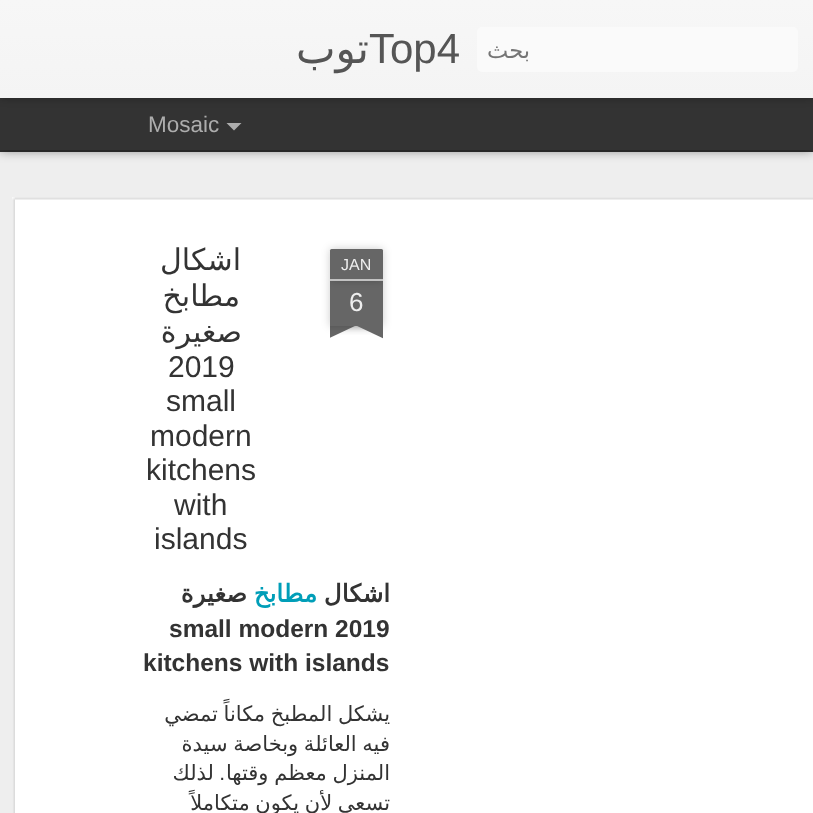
async function draw(canvas) {
  canvas.width = 813;
  canvas.height = 813;
  const ctx = canvas.getContext('2d');
  ctx.miterLimit = 4;
  ctx.fontKerning = 'normal';
  function label(s, x, y, font, color) {
    ctx.font = font;
    ctx.fillStyle = color;
    ctx.fillText(s, x, y);
  }
  function rect(x, y, w, h, color) {
    ctx.fillStyle = color;
    ctx.fillRect(x, y, w, h);
  }
  function roundedRect(x, y, w, h, r, color) {
    ctx.fillStyle = color;
    ctx.beginPath();
    ctx.roundRect(x, y, w, h, r);
    ctx.fill();
  }
  async function image(src, x, y, w, h) {
    const img = new Image();
    img.src = src;
    await img.decode();
    ctx.drawImage(img, x, y, w, h);
  }
  let gradient, path;

  rect(0, 0, 813, 813, '#333');
  rect(0, 152, 813, 661, '#eee');
  ctx.fillStyle = '#00000080';
  ctx.filter = 'blur(6px)';
  ctx.beginPath();
  ctx.rect(0, 98, 813, 52);
  ctx.fill();
  ctx.filter = 'none';
  rect(0, 98, 813, 52, '#333');
  ctx.fillStyle = '#0000004d';
  ctx.filter = 'blur(4px)';
  ctx.beginPath();
  ctx.rect(0, 0, 813, 98);
  ctx.fill();
  ctx.filter = 'none';
  gradient = ctx.createLinearGradient(0, 0, 0, 98);
  gradient.addColorStop(0, '#f7f7f7');
  gradient.addColorStop(1, '#f4f4f4');
  ctx.fillStyle = gradient;
  ctx.fillRect(0, 0, 813, 98);
  roundedRect(477, 27, 321, 45, 5, '#fafafa');
  ctx.direction = 'rtl';
  label('بحث', 530, 58, '22.5px DejaVu Sans', '#757575');
  ctx.direction = 'ltr';
  label('Top4', 369, 63, '42px Liberation Sans', '#555');
  ctx.direction = 'rtl';
  label('توب', 369, 63, '42px DejaVu Sans', '#555');
  ctx.fillStyle = '#adadad';
  path = new Path2D('M226.5 123H241.5L234 130.5Z');
  ctx.fill(path);
  ctx.direction = 'ltr';
  label('Mosaic', 148, 132, '22.5px Liberation Sans', '#adadad');
  rect(12, 197, 801, 616, '#fff');
  await image('assets/img1.png', 12, 197, 801, 616);
  ctx.fillStyle = '#00000033';
  ctx.filter = 'blur(4px)';
  ctx.beginPath();
  ctx.rect(330, 281, 53, 45);
  ctx.fill();
  ctx.filter = 'none';
  rect(330, 281, 53, 45, '#666');
  ctx.fillStyle = '#00000033';
  ctx.filter = 'blur(4px)';
  ctx.beginPath();
  ctx.roundRect(330, 249, 53, 32, 1.5);
  ctx.fill();
  ctx.filter = 'none';
  ctx.fillStyle = '#666';
  ctx.beginPath();
  ctx.roundRect(330, 249, 53, 32, [1.5, 1.5, 0, 0]);
  ctx.fill();
  rect(330, 279, 53, 2, '#c2c2c2');
  label('JAN', 341, 270, '16px Liberation Sans', '#eee');
  label('6', 349, 311, '26px Liberation Sans', '#eee');
  ctx.save();
  ctx.beginPath();
  ctx.rect(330, 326, 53, 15);
  ctx.clip();
  ctx.fillStyle = '#00000033';
  ctx.filter = 'blur(4px)';
  ctx.beginPath();
  ctx.rect(317, 311, 75, 15);
  ctx.fill();
  ctx.filter = 'none';
  ctx.restore();
  ctx.save();
  ctx.beginPath();
  ctx.rect(330, 326, 53, 15);
  ctx.clip();
  ctx.fillStyle = '#666';
  path = new Path2D('M317 327L385 295L391 309L323 341Z');
  ctx.fill(path);
  ctx.restore();
  ctx.save();
  ctx.beginPath();
  ctx.rect(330, 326, 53, 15);
  ctx.clip();
  ctx.fillStyle = '#00000033';
  ctx.filter = 'blur(4px)';
  ctx.beginPath();
  ctx.rect(321, 311, 75, 15);
  ctx.fill();
  ctx.filter = 'none';
  ctx.restore();
  ctx.save();
  ctx.beginPath();
  ctx.rect(330, 326, 53, 15);
  ctx.clip();
  ctx.fillStyle = '#666';
  path = new Path2D('M328 295L396 327L389 341L321 309Z');
  ctx.fill(path);
  ctx.restore();
  ctx.direction = 'rtl';
  label('اشكال', 241, 270, '30px DejaVu Sans', '#333');
  label('مطابخ', 240, 306, '30px DejaVu Sans', '#333');
  label('صغيرة', 242, 342, '30px DejaVu Sans', '#333');
  ctx.direction = 'ltr';
  label('2019', 168, 377, '30px Liberation Sans', '#333');
  label('small', 166, 411, '30px Liberation Sans', '#333');
  label('modern', 150, 446, '30px Liberation Sans', '#333');
  label('kitchens', 146, 480, '30px Liberation Sans', '#333');
  label('with', 174, 515, '30px Liberation Sans', '#333');
  label('islands', 154, 549, '30px Liberation Sans', '#333');
  ctx.direction = 'rtl';
  label('اشكال', 390, 602, 'bold 24.5px DejaVu Sans', '#333');
  label('مطابخ', 317, 602, 'bold 24.5px DejaVu Sans', '#009eb8');
  label('صغيرة', 247, 602, 'bold 24.5px DejaVu Sans', '#333');
  ctx.direction = 'ltr';
  label('small modern 2019', 169, 637, 'bold 24.5px Liberation Sans', '#333');
  label('kitchens with islands', 143, 671, 'bold 24.5px Liberation Sans', '#333');
  ctx.wordSpacing = '-1px';
  ctx.direction = 'rtl';
  label('يشكل المطبخ مكاناً تمضي', 390, 721, '21px DejaVu Sans', '#333');
  label('فيه العائلة وبخاصة سيدة', 390, 751, '21px DejaVu Sans', '#333');
  label('المنزل معظم وقتها', 390, 780, '21px DejaVu Sans', '#333');
  ctx.wordSpacing = '0px';
  label('.', 225, 780, '21px Liberation Sans', '#333');
  label('لذلك', 214, 780, '21px DejaVu Sans', '#333');
  ctx.wordSpacing = '-1px';
  label('تسعى لأن يكون متكاملاً', 390, 810, '21px DejaVu Sans', '#333');
}

draw(document.querySelector('canvas'));
